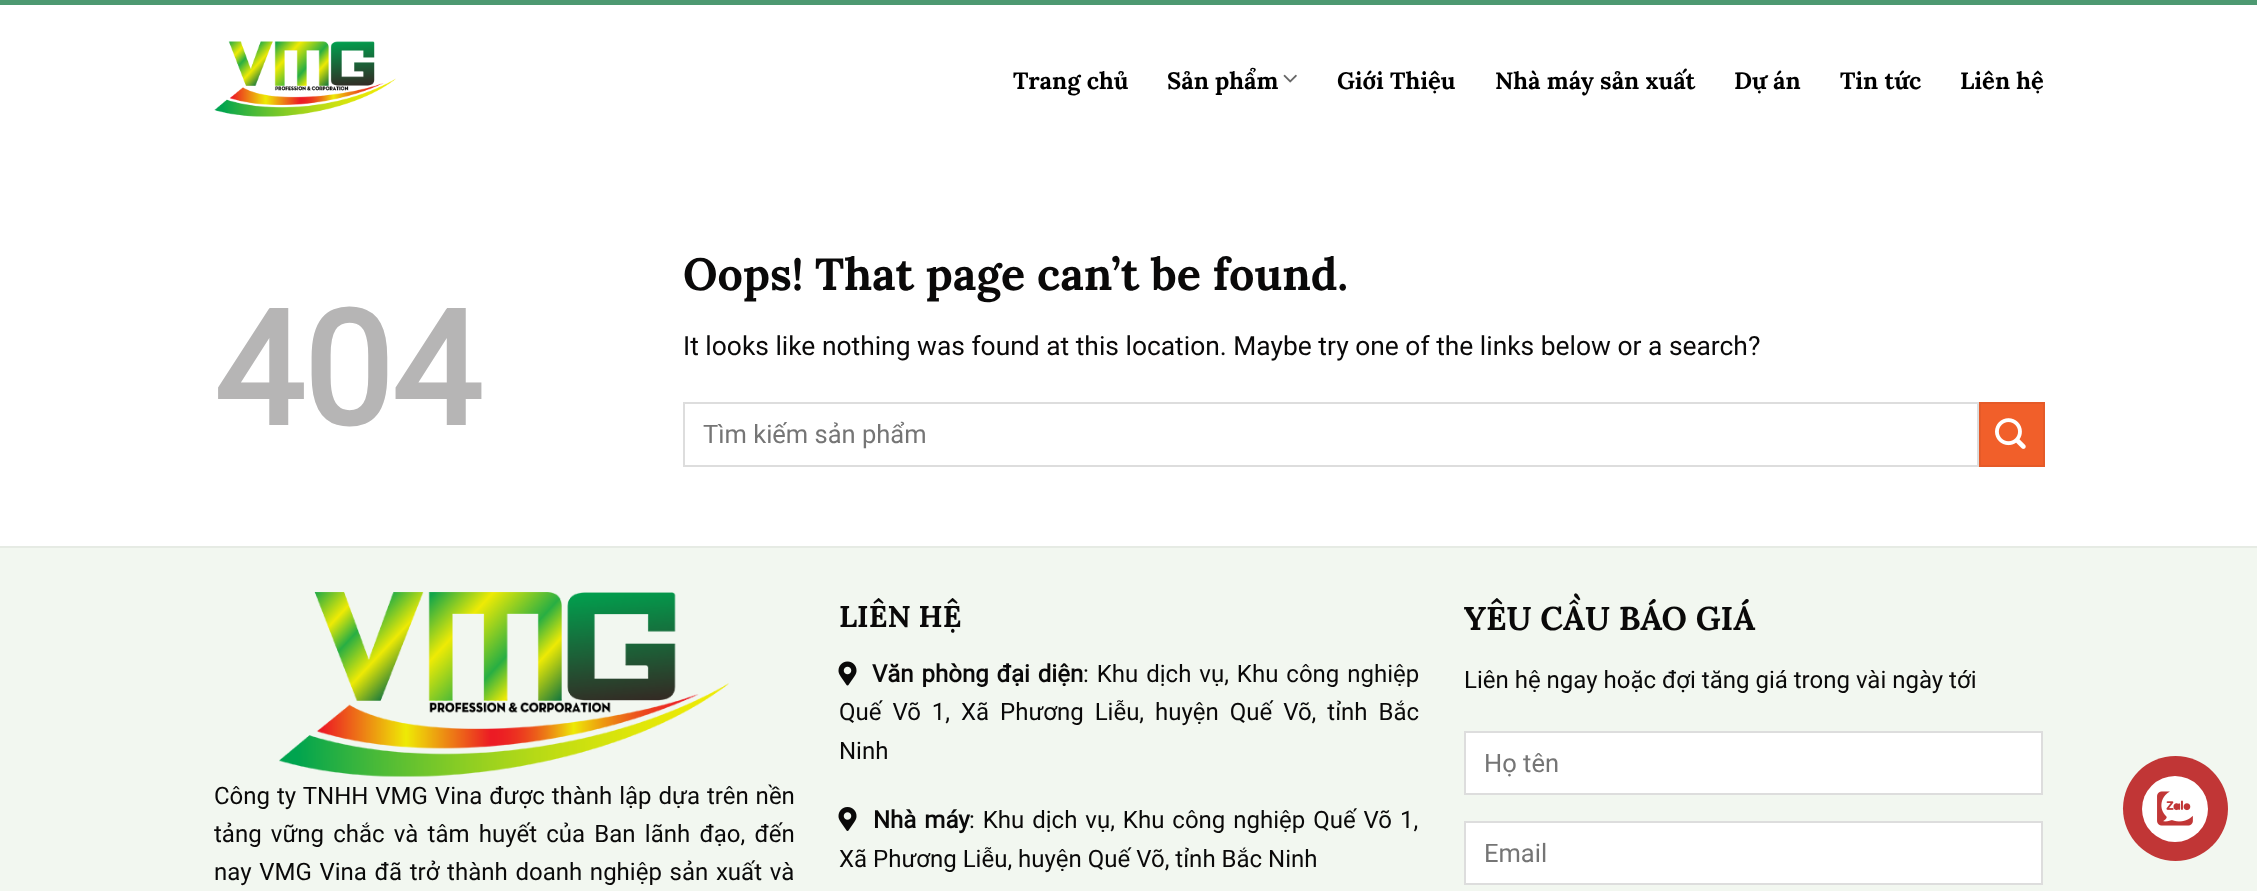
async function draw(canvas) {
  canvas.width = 2257;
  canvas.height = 891;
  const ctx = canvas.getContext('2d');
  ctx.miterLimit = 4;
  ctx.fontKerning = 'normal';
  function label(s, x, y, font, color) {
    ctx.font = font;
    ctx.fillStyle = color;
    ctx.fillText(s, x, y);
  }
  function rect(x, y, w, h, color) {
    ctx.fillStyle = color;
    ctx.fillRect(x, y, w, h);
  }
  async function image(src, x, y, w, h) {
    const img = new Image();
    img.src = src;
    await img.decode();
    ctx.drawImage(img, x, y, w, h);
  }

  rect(0, 0, 2257, 891, '#fff');
  rect(0, 0, 2257, 5, '#4d9971');
  await image('assets/img1.png', 214, 41, 182, 76);
  label('Trang chủ', 1013, 89, 'bold 23.75px Lora', '#000');
  label('Sản phẩm', 1167, 89, 'bold 23.75px Lora', '#000');
  await image('assets/img2.png', 1283, 74, 14, 9);
  label('Giới Thiệu', 1337, 89, 'bold 23.75px Lora', '#000');
  label('Nhà máy sản xuất', 1495, 89, 'bold 23.75px Lora', '#000');
  label('Dự án', 1734, 89, 'bold 23.75px Lora', '#000');
  label('Tin tức', 1840, 89, 'bold 23.75px Lora', '#000');
  label('Liên hệ', 1960, 89, 'bold 23.75px Lora', '#000');
  label('404', 214, 425, 'bold 158px Roboto', '#b6b5b5');
  label('Oops! That page can’t be found.', 683, 290, 'bold 44.9px Lora', '#0a0909');
  label('It looks like nothing was found at this location. Maybe try one of the links below or a search?', 683, 355, '26.4px Roboto', '#0a0909');
  ctx.strokeStyle = '#ddd';
  ctx.lineWidth = 2;
  ctx.strokeRect(684, 403, 1294, 63);
  label('Tìm kiếm sản phẩm', 703, 443, '25.5px Roboto', '#757575');
  ctx.fillStyle = '#f15f2a';
  ctx.beginPath();
  ctx.rect(1980, 403, 64, 63);
  ctx.fill();
  ctx.strokeStyle = '#e55a28';
  ctx.stroke();
  await image('assets/img3.png', 1995, 418, 31, 31);
  rect(0, 548, 2257, 343, '#f2f7f0');
  rect(0, 546, 2257, 2, '#e6ebe4');
  await image('assets/img4.png', 279, 592, 450, 185);
  ctx.wordSpacing = '1px';
  label('Công ty TNHH VMG Vina được thành lập dựa trên nền', 214, 804, '24px Roboto', '#0a0909');
  ctx.wordSpacing = '3.25px';
  label('tảng vững chắc và tâm huyết của Ban lãnh đạo, đến', 214, 842, '24px Roboto', '#0a0909');
  ctx.wordSpacing = '1.75px';
  label('nay VMG Vina đã trở thành doanh nghiệp sản xuất và', 214, 880, '24px Roboto', '#0a0909');
  ctx.wordSpacing = '0px';
  label('LIÊN HỆ', 839, 627, 'bold 30px Lora', '#0a0909');
  await image('assets/img5.png', 838, 661, 19, 25);
  ctx.wordSpacing = '2px';
  label('Văn phòng đại diện', 872, 682, 'bold 24px Roboto', '#0a0909');
  label(': Khu dịch vụ, Khu công nghiệp', 1083, 682, '24px Roboto', '#0a0909');
  ctx.wordSpacing = '5px';
  label('Quế Võ 1, Xã Phương Liễu, huyện Quế Võ, tỉnh Bắc', 839, 720, '24px Roboto', '#0a0909');
  ctx.wordSpacing = '0px';
  label('Ninh', 839, 759, '24px Roboto', '#0a0909');
  await image('assets/img6.png', 838, 807, 19, 24);
  ctx.wordSpacing = '2px';
  label('Nhà máy', 873, 828, 'bold 24px Roboto', '#0a0909');
  label(': Khu dịch vụ, Khu công nghiệp Quế Võ 1,', 969, 828, '24px Roboto', '#0a0909');
  ctx.wordSpacing = '0px';
  label('Xã Phương Liễu, huyện Quế Võ, tỉnh Bắc Ninh', 839, 867, '24px Roboto', '#0a0909');
  label('YÊU CẦU BÁO GIÁ', 1464, 630, 'bold 33px Lora', '#0a0909');
  label('Liên hệ ngay hoặc đợi tăng giá trong vài ngày tới', 1464, 688, '24px Roboto', '#0a0909');
  ctx.fillStyle = '#fff';
  ctx.beginPath();
  ctx.rect(1465, 732, 577, 62);
  ctx.fill();
  ctx.strokeStyle = '#ddd';
  ctx.stroke();
  label('Họ tên', 1484, 772, '25.5px Roboto', '#757575');
  ctx.fillStyle = '#fff';
  ctx.beginPath();
  ctx.rect(1465, 822, 577, 62);
  ctx.fill();
  ctx.stroke();
  label('Email', 1484, 862, '25.5px Roboto', '#757575');
  ctx.fillStyle = '#c13636';
  ctx.beginPath();
  ctx.arc(2175.5, 808.5, 52.5, 0, 2 * Math.PI);
  ctx.fill();
  ctx.fillStyle = '#fff';
  ctx.beginPath();
  ctx.arc(2175, 809, 33, 0, 2 * Math.PI);
  ctx.fill();
  await image('assets/img7.png', 2157, 791, 36, 35);
}

draw(document.querySelector('canvas'));
